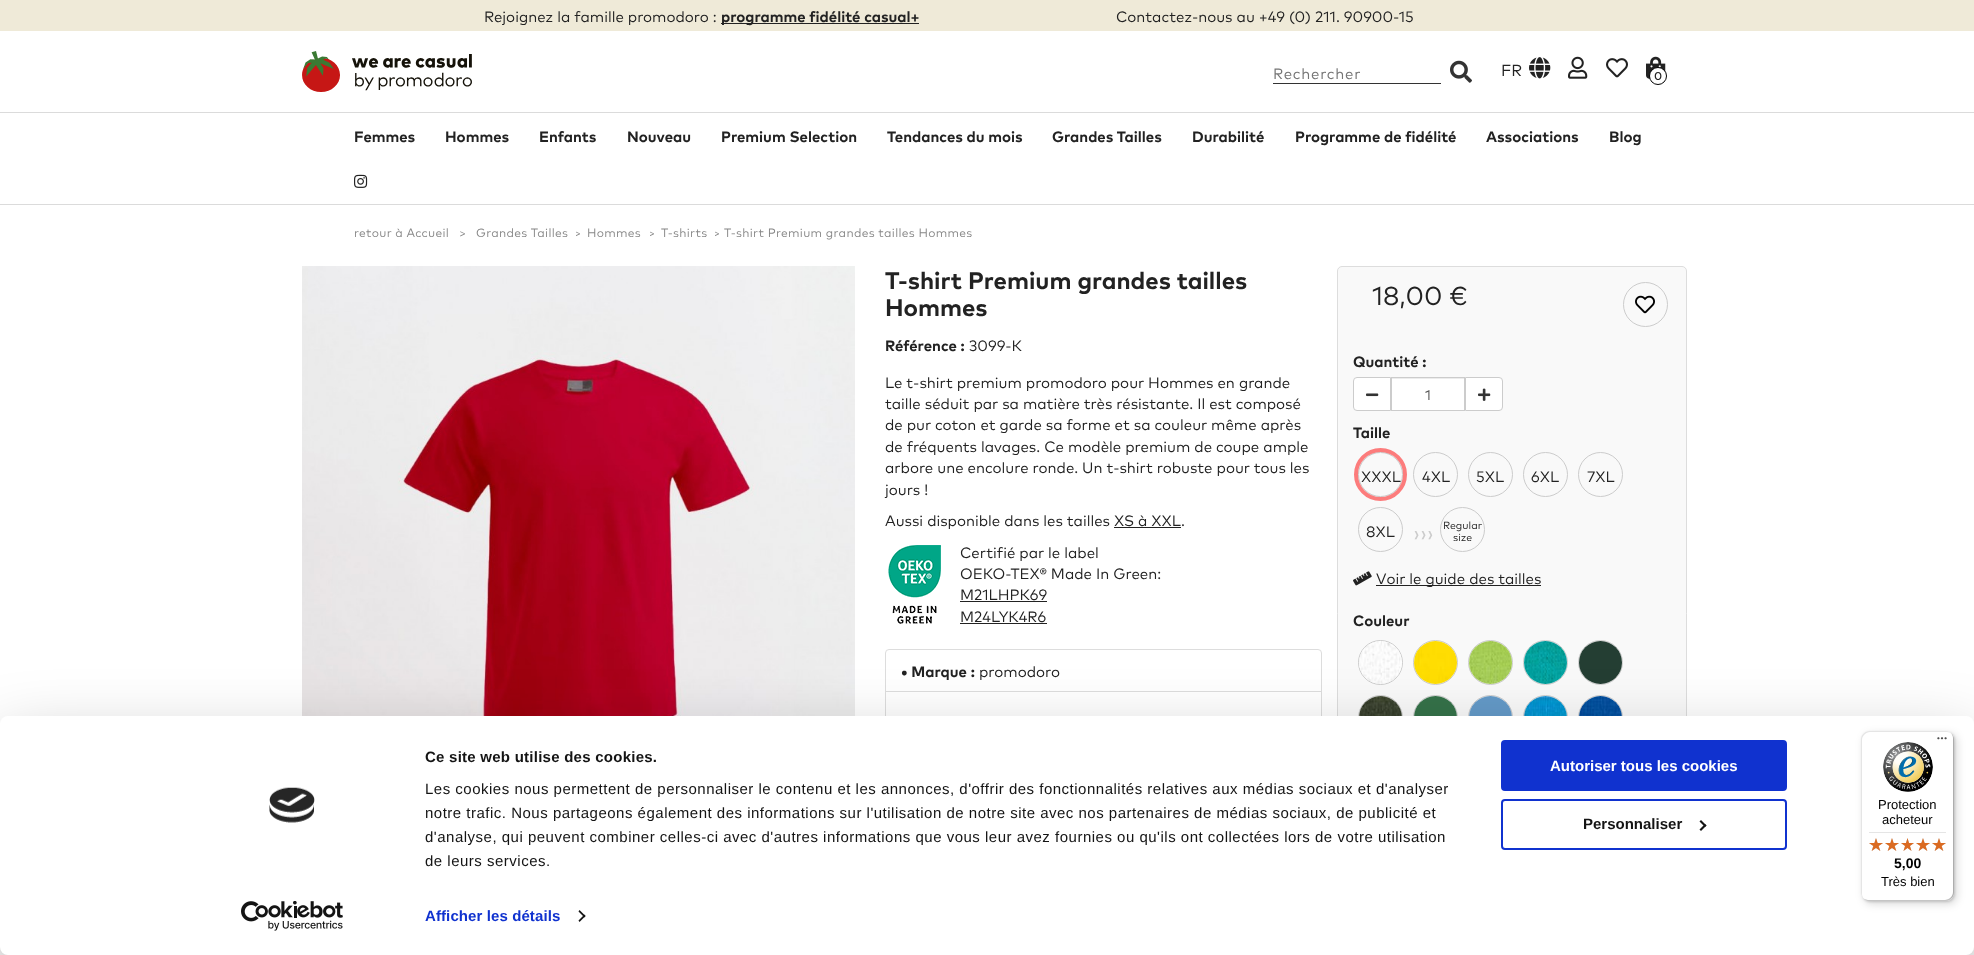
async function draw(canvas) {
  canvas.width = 1974;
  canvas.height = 955;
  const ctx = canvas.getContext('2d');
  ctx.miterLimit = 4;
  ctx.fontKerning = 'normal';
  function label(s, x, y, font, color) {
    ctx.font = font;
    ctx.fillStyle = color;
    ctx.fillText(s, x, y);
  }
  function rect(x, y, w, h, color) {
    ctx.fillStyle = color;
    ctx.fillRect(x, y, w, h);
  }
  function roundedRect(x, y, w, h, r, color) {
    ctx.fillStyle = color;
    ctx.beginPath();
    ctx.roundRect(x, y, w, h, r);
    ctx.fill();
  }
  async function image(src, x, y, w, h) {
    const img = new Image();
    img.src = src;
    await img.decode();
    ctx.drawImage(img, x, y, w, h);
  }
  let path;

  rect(0, 0, 1974, 955, '#fff');
  rect(0, 0, 1974, 31, '#efead8');
  label('Rejoignez la famille promodoro :', 484, 22, '15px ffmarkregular', '#222');
  rect(721, 23, 198, 1, '#222');
  label('programme fidélité casual+', 721, 22, 'bold 15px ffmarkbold', '#222');
  label('Contactez-nous au +49 (0) 211. 90900-15', 1116, 22, '15px ffmarkregular', '#222');
  await image('assets/img1.png', 302, 51, 170, 41);
  rect(1273, 83, 168, 1, '#333');
  ctx.letterSpacing = '0.75px';
  label('Rechercher', 1273, 79, '15px ffmarkregular', '#757575');
  await image('assets/img2.png', 1450, 60, 22, 23);
  ctx.letterSpacing = '0px';
  label('FR', 1501, 76, '16px ffmarkregular', '#222');
  await image('assets/img3.png', 1529, 57, 22, 22);
  await image('assets/img4.png', 1568, 56, 20, 23);
  await image('assets/img5.png', 1606, 58, 22, 20);
  await image('assets/img6.png', 1646, 56, 20, 23);
  ctx.fillStyle = '#fff';
  ctx.beginPath();
  ctx.arc(1658, 76, 8.5, 0, 2 * Math.PI);
  ctx.fill();
  ctx.strokeStyle = '#000';
  ctx.stroke();
  label('0', 1654, 80, 'bold 11px ffmarkregular', '#222');
  rect(0, 112, 1974, 1, '#dbdbdb');
  rect(0, 204, 1974, 1, '#dbdbdb');
  label('Femmes', 354, 142, 'bold 15px ffmarkbold', '#222');
  label('Hommes', 445, 142, 'bold 15px ffmarkbold', '#222');
  label('Enfants', 539, 142, 'bold 15px ffmarkbold', '#222');
  label('Nouveau', 627, 142, 'bold 15px ffmarkbold', '#222');
  label('Premium Selection', 721, 142, 'bold 15px ffmarkbold', '#222');
  label('Tendances du mois', 887, 142, 'bold 15px ffmarkbold', '#222');
  label('Grandes Tailles', 1052, 142, 'bold 15px ffmarkbold', '#222');
  label('Durabilité', 1192, 142, 'bold 15px ffmarkbold', '#222');
  label('Programme de fidélité', 1295, 142, 'bold 15px ffmarkbold', '#222');
  label('Associations', 1486, 142, 'bold 15px ffmarkbold', '#222');
  label('Blog', 1609, 142, 'bold 15px ffmarkbold', '#222');
  await image('assets/img7.png', 354, 174, 14, 14);
  ctx.letterSpacing = '0.3px';
  label('retour à Accueil', 354, 237, '12px ffmarkregular', '#888');
  label('>', 459, 237, '12px ffmarkregular', '#888');
  label('Grandes Tailles', 476, 237, '12px ffmarkregular', '#888');
  label('>', 574, 237, '12px ffmarkregular', '#888');
  rect(575, 226, 1, 15, '#fff');
  label('Hommes', 587, 237, '12px ffmarkregular', '#888');
  label('>', 648, 237, '12px ffmarkregular', '#888');
  rect(649, 226, 1, 15, '#fff');
  label('T-shirts', 661, 237, '12px ffmarkregular', '#888');
  label('>', 713, 237, '12px ffmarkregular', '#888');
  rect(714, 226, 1, 15, '#fff');
  label('T-shirt Premium grandes tailles Hommes', 724, 237, '12px ffmarkregular', '#888');
  await image('assets/img8.png', 302, 266, 553, 450);
  ctx.letterSpacing = '0px';
  label('T-shirt Premium grandes tailles', 885, 289, 'bold 24px ffmarkbold', '#222');
  label('Hommes', 885, 316, 'bold 24px ffmarkbold', '#222');
  label('Référence :', 885, 351, 'bold 15px ffmarkbold', '#222');
  label('3099-K', 969, 351, '15px ffmarkregular', '#222');
  label('Le t-shirt premium promodoro pour Hommes en grande', 885, 388, '15px ffmarkregular', '#222');
  label('taille séduit par sa matière très résistante. Il est composé', 885, 409, '15px ffmarkregular', '#222');
  label('de pur coton et garde sa forme et sa couleur même après', 885, 430, '15px ffmarkregular', '#222');
  label('de fréquents lavages. Ce modèle premium de coupe ample', 885, 452, '15px ffmarkregular', '#222');
  label('arbore une encolure ronde. Un t-shirt robuste pour tous les', 885, 473, '15px ffmarkregular', '#222');
  label('jours !', 885, 495, '15px ffmarkregular', '#222');
  label('Aussi disponible dans les tailles', 885, 526, '15px ffmarkregular', '#222');
  label('XS à XXL', 1114, 526, '15px ffmarkregular', '#222');
  rect(1114, 527, 67, 1, '#222');
  label('.', 1181, 526, '15px ffmarkregular', '#222');
  await image('assets/img9.png', 888, 545, 53, 79);
  label('Certifié par le label', 960, 558, '15px ffmarkregular', '#222');
  label('OEKO-TEX® Made In Green:', 960, 579, '15px ffmarkregular', '#222');
  label('M21LHPK69', 960, 600, '15px ffmarkregular', '#222');
  rect(960, 601, 87, 1, '#222');
  label('M24LYK4R6', 960, 622, '15px ffmarkregular', '#222');
  rect(960, 623, 87, 1, '#222');
  ctx.beginPath();
  ctx.roundRect(885.5, 649.5, 436, 42, [3.5, 3.5, 0, 0]);
  ctx.strokeStyle = '#ddd';
  ctx.stroke();
  label('• Marque :', 901, 677, 'bold 15px ffmarkbold', '#222');
  label('promodoro', 979, 677, '15px ffmarkregular', '#222');
  ctx.strokeRect(885.5, 691.5, 436, 43);
  ctx.fillStyle = '#f9f9f9';
  ctx.beginPath();
  ctx.roundRect(1337.5, 266.5, 349, 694, 4.5);
  ctx.fill();
  ctx.stroke();
  label('18,00 €', 1372, 305, '26px ffmarkregular', '#222');
  label('Quantité :', 1353, 367, 'bold 15px ffmarkbold', '#222');
  ctx.fillStyle = '#fff';
  ctx.beginPath();
  ctx.roundRect(1353.5, 377.5, 37, 33, [3.5, 0, 0, 3.5]);
  ctx.fill();
  ctx.strokeStyle = '#ccc';
  ctx.stroke();
  await image('assets/img10.png', 1366, 393, 13, 4);
  rect(1392, 379, 72, 31, '#fff');
  rect(1392, 378, 72, 1, '#ececec');
  ctx.strokeRect(1391.5, 377.5, 73, 33);
  label('1', 1425, 400, '14px ffmarkregular', '#555');
  ctx.fillStyle = '#fff';
  ctx.beginPath();
  ctx.roundRect(1465.5, 377.5, 37, 33, [0, 3.5, 3.5, 0]);
  ctx.fill();
  ctx.stroke();
  await image('assets/img11.png', 1478, 388, 13, 13);
  label('Taille', 1353, 438, 'bold 15px ffmarkbold', '#222');
  ctx.beginPath();
  ctx.arc(1380.5, 474.5, 22, 0, 2 * Math.PI);
  ctx.stroke();
  label('XXXL', 1361, 482, '15px ffmarkregular', '#222');
  ctx.beginPath();
  ctx.arc(1380.5, 474.5, 24.5, 0, 2 * Math.PI);
  ctx.strokeStyle = '#ff000080';
  ctx.lineWidth = 4;
  ctx.stroke();
  ctx.beginPath();
  ctx.arc(1435.5, 474.5, 22, 0, 2 * Math.PI);
  ctx.strokeStyle = '#ccc';
  ctx.lineWidth = 1;
  ctx.stroke();
  label('4XL', 1422, 482, '15px ffmarkregular', '#222');
  ctx.beginPath();
  ctx.arc(1490.5, 474.5, 22, 0, 2 * Math.PI);
  ctx.stroke();
  label('5XL', 1476, 482, '15px ffmarkregular', '#222');
  ctx.beginPath();
  ctx.arc(1545.5, 474.5, 22, 0, 2 * Math.PI);
  ctx.stroke();
  label('6XL', 1531, 482, '15px ffmarkregular', '#222');
  ctx.beginPath();
  ctx.arc(1600.5, 474.5, 22, 0, 2 * Math.PI);
  ctx.stroke();
  label('7XL', 1587, 482, '15px ffmarkregular', '#222');
  ctx.beginPath();
  ctx.arc(1380.5, 529.5, 22, 0, 2 * Math.PI);
  ctx.stroke();
  label('8XL', 1366, 537, '15px ffmarkregular', '#222');
  label('›››', 1413, 541, '22px ffmarkregular', '#ccc');
  ctx.beginPath();
  ctx.arc(1462.5, 529.5, 22, 0, 2 * Math.PI);
  ctx.stroke();
  label('Regular', 1443, 529, '10.5px ffmarkregular', '#222');
  label('size', 1453, 541, '10.5px ffmarkregular', '#222');
  await image('assets/img12.png', 1353, 571, 19, 15);
  rect(1376, 585, 165, 1, '#222');
  label('Voir le guide des tailles', 1376, 584, '15px ffmarkregular', '#222');
  label('Couleur', 1353, 626, 'bold 15px ffmarkbold', '#222');
  ctx.beginPath();
  ctx.arc(1380.5, 662.5, 22, 0, 2 * Math.PI);
  ctx.stroke();
  await image('assets/img13.png', 1359, 641, 43, 43);
  ctx.beginPath();
  ctx.arc(1435.5, 662.5, 22, 0, 2 * Math.PI);
  ctx.stroke();
  await image('assets/img14.png', 1414, 641, 43, 43);
  ctx.beginPath();
  ctx.arc(1490.5, 662.5, 22, 0, 2 * Math.PI);
  ctx.stroke();
  await image('assets/img15.png', 1469, 641, 43, 43);
  ctx.beginPath();
  ctx.arc(1545.5, 662.5, 22, 0, 2 * Math.PI);
  ctx.stroke();
  await image('assets/img16.png', 1524, 641, 43, 43);
  ctx.beginPath();
  ctx.arc(1600.5, 662.5, 22, 0, 2 * Math.PI);
  ctx.stroke();
  await image('assets/img17.png', 1579, 641, 43, 43);
  ctx.beginPath();
  ctx.arc(1380.5, 717.5, 22, 0, 2 * Math.PI);
  ctx.stroke();
  await image('assets/img18.png', 1359, 696, 43, 20);
  ctx.beginPath();
  ctx.arc(1435.5, 717.5, 22, 0, 2 * Math.PI);
  ctx.stroke();
  await image('assets/img19.png', 1414, 696, 43, 20);
  ctx.beginPath();
  ctx.arc(1490.5, 717.5, 22, 0, 2 * Math.PI);
  ctx.stroke();
  await image('assets/img20.png', 1469, 696, 43, 20);
  ctx.beginPath();
  ctx.arc(1545.5, 717.5, 22, 0, 2 * Math.PI);
  ctx.stroke();
  await image('assets/img21.png', 1524, 696, 43, 20);
  ctx.beginPath();
  ctx.arc(1600.5, 717.5, 22, 0, 2 * Math.PI);
  ctx.stroke();
  await image('assets/img22.png', 1579, 696, 43, 20);
  ctx.beginPath();
  ctx.arc(1645.5, 304.5, 22, 0, 2 * Math.PI);
  ctx.stroke();
  await image('assets/img23.png', 1635, 295, 20, 19);
  ctx.fillStyle = '#0000004d';
  ctx.filter = 'blur(35px)';
  ctx.beginPath();
  ctx.roundRect(0, 746, 1974, 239, 8);
  ctx.fill();
  ctx.filter = 'none';
  roundedRect(0, 716, 1974, 239, 8, '#fff');
  await image('assets/img24.png', 269, 787, 46, 36);
  await image('assets/img25.png', 241, 901, 102, 30);
  ctx.letterSpacing = '0.25px';
  label('Ce site web utilise des cookies.', 425, 762, 'bold 15px Liberation Sans', '#141414');
  ctx.letterSpacing = '0.5px';
  label('Les cookies nous permettent de personnaliser le contenu et les annonces, d\'offrir des fonctionnalités relatives aux médias sociaux et d\'analyser', 425, 794, '15px Liberation Sans', '#141414');
  label('notre trafic. Nous partageons également des informations sur l\'utilisation de notre site avec nos partenaires de médias sociaux, de publicité et', 425, 818, '15px Liberation Sans', '#141414');
  label('d\'analyse, qui peuvent combiner celles-ci avec d\'autres informations que vous leur avez fournies ou qu\'ils ont collectées lors de votre utilisation', 425, 842, '15px Liberation Sans', '#141414');
  label('de leurs services.', 425, 866, '15px Liberation Sans', '#141414');
  ctx.letterSpacing = '0.1px';
  label('Afficher les détails', 425, 921, 'bold 15px Liberation Sans', '#1032cf');
  ctx.fillStyle = '#141414';
  path = new Path2D('M579.5 910L585.5 916L584.5 917.5L578.5 911.5Z');
  ctx.fill(path);
  path = new Path2D('M584.5 914.5L585.5 916L579.5 922L578.5 920.5Z');
  ctx.fill(path);
  ctx.fillStyle = '#1032cf';
  ctx.beginPath();
  ctx.roundRect(1502, 741, 284, 49, 3);
  ctx.fill();
  ctx.strokeStyle = '#1032cf';
  ctx.lineWidth = 2;
  ctx.stroke();
  ctx.letterSpacing = '0px';
  label('Autoriser tous les cookies', 1550, 771, 'bold 15px Liberation Sans', '#fff');
  ctx.beginPath();
  ctx.roundRect(1502, 800, 284, 49, 3);
  ctx.stroke();
  label('Personnaliser', 1583, 829, 'bold 15px Liberation Sans', '#141414');
  path = new Path2D('M1701 820L1706.5 825.5L1705 827L1699.5 821.5Z');
  ctx.fill(path);
  path = new Path2D('M1705 824L1706.5 825.5L1701 831L1699.5 829.5Z');
  ctx.fill(path);
  ctx.fillStyle = '#00000026';
  ctx.filter = 'blur(4px)';
  ctx.beginPath();
  ctx.roundRect(1864, 734, 93, 170, 8);
  ctx.fill();
  ctx.filter = 'none';
  ctx.filter = 'blur(1px)';
  ctx.beginPath();
  ctx.roundRect(1862, 732, 93, 170, 8);
  ctx.fill();
  ctx.filter = 'none';
  roundedRect(1861, 731, 93, 170, 8, '#fff');
  ctx.fillStyle = '#e5e5e5';
  path = new Path2D('M1870 732H1947C1949 732 1951 733 1953 735C1951 733 1949 731 1946 731H1869C1865 731 1861 735 1861 739V893C1861 896 1863 898 1865 900C1863 898 1862 896 1862 894V740C1862 736 1866 732 1870 732Z');
  ctx.fill(path);
  ctx.fillStyle = '#ccc';
  path = new Path2D('M1862 897C1864 899 1866 901 1869 901H1946C1950 901 1954 897 1954 893V739C1954 736 1952 734 1950 732C1952 734 1953 736 1953 738V892C1953 896 1949 900 1945 900H1868C1866 900 1864 899 1862 897Z');
  ctx.fill(path);
  ctx.fillStyle = '#32323233';
  path = new Path2D('M1863 898C1864 900 1867 901 1869 901H1946C1950 901 1954 897 1954 893V739C1954 737 1953 734 1951 733C1952 734 1953 736 1953 738V892C1953 897 1950 900 1945 900H1868C1866 900 1864 899 1863 898Z');
  ctx.fill(path);
  await image('assets/img26.png', 1937, 737, 10, 3);
  ctx.fillStyle = '#ffffff4d';
  path = new Path2D('M1863 898C1864 900 1867 901 1869 901H1946C1950 901 1954 897 1954 893V892C1954 897 1950 900 1946 900H1868C1866 900 1864 899 1863 898Z');
  ctx.fill(path);
  await image('assets/img27.png', 1883, 742, 50, 50);
  label('Protection', 1878, 809, '13px Liberation Sans', '#000');
  label('acheteur', 1882, 824, '13px Liberation Sans', '#000');
  rect(1869, 832, 77, 1, '#e5e5e5');
  await image('assets/img28.png', 1869, 838, 14, 13);
  await image('assets/img28.png', 1885, 838, 14, 13);
  await image('assets/img29.png', 1901, 838, 13, 13);
  await image('assets/img28.png', 1916, 838, 14, 13);
  await image('assets/img28.png', 1932, 838, 14, 13);
  await image('assets/img30.png', 1869, 838, 14, 13);
  await image('assets/img30.png', 1885, 838, 14, 13);
  await image('assets/img31.png', 1901, 838, 13, 13);
  await image('assets/img30.png', 1916, 838, 14, 13);
  await image('assets/img30.png', 1932, 838, 14, 13);
  label('5,00', 1894, 868, 'bold 14px Liberation Sans', '#000');
  label('Très bien', 1881, 886, '13px Liberation Sans', '#000');
}

draw(document.querySelector('canvas'));
